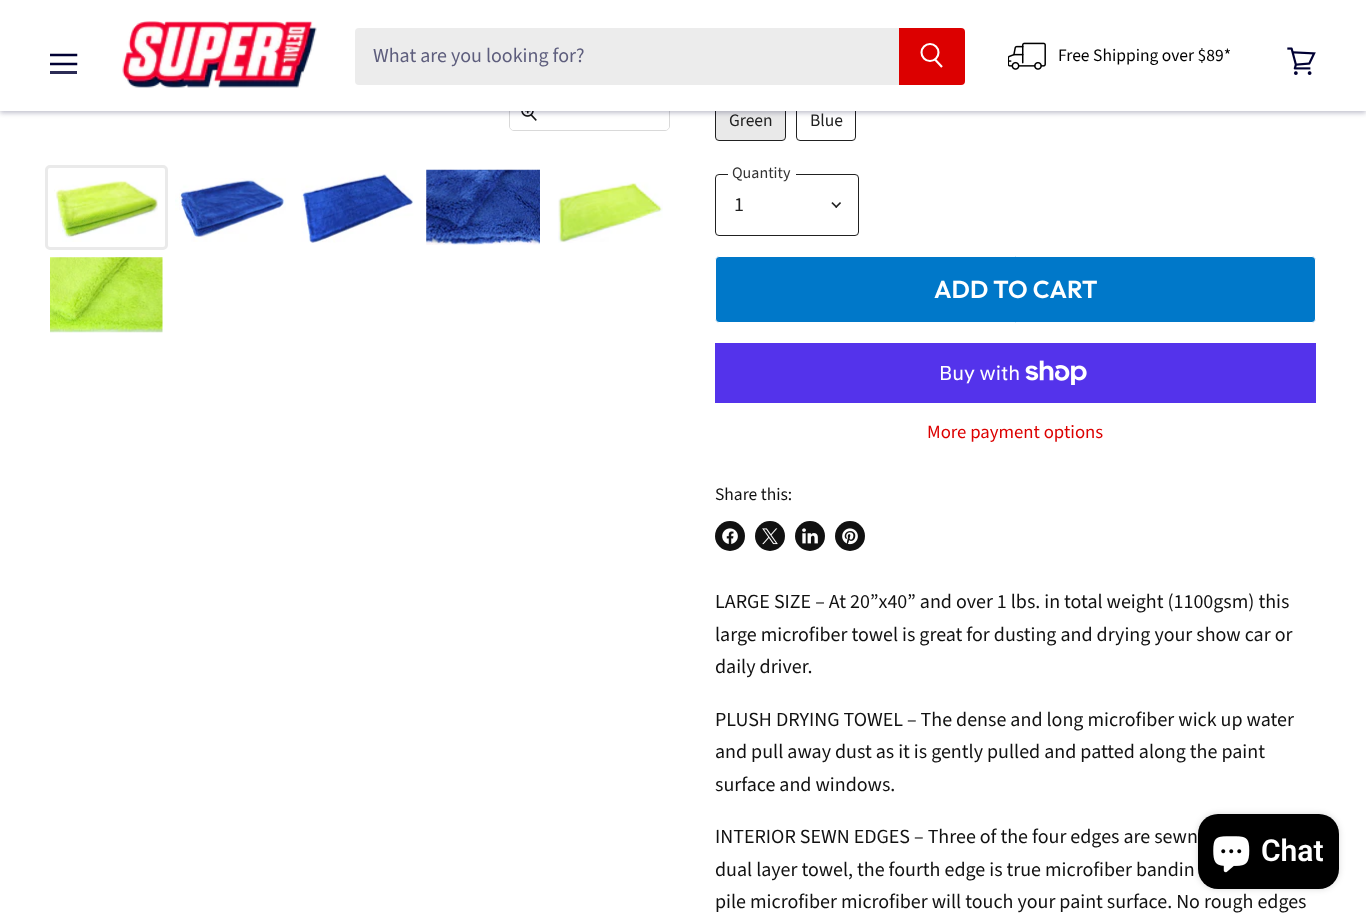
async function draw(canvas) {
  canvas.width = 1366;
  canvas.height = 915;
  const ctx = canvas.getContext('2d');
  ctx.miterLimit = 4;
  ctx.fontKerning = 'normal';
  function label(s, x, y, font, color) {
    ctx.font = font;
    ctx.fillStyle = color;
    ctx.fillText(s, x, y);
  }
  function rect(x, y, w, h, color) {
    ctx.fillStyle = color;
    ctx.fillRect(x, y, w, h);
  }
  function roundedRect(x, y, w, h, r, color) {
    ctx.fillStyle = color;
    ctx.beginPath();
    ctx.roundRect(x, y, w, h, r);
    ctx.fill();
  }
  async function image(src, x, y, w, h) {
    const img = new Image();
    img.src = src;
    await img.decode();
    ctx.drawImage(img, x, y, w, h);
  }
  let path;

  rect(0, 0, 1366, 915, '#fff');
  ctx.beginPath();
  ctx.roundRect(509.5, 94.5, 160, 36, 4.5);
  ctx.strokeStyle = '#d9d9d9';
  ctx.stroke();
  roundedRect(510, 95, 159, 35, 4, '#ffffffe6');
  await image('assets/img4.png', 521, 111, 16, 10);
  ctx.fillStyle = '#e9e9e9';
  ctx.beginPath();
  ctx.roundRect(715.5, 100.5, 70, 40, 3.5);
  ctx.fill();
  ctx.strokeStyle = '#212121';
  ctx.stroke();
  ctx.beginPath();
  ctx.roundRect(796.5, 100.5, 59, 40, 3.5);
  ctx.stroke();
  ctx.fillStyle = '#00003340';
  ctx.filter = 'blur(2.5px)';
  ctx.beginPath();
  ctx.rect(0, 1, 1366, 112);
  ctx.fill();
  ctx.filter = 'none';
  rect(0, 0, 1366, 111, '#fff');
  ctx.save();
  ctx.beginPath();
  ctx.rect(50, 53, 28, 22);
  ctx.clip();
  path = new Path2D('M76 55H51M76 64H51');
  ctx.strokeStyle = '#003';
  ctx.lineWidth = 2.5;
  ctx.lineCap = 'square';
  ctx.lineJoin = 'round';
  ctx.stroke(path);
  ctx.restore();
  rect(50, 71, 27, 3, '#2b2b55');
  await image('assets/img1.png', 122, 21, 195, 67);
  ctx.fillStyle = '#ececec';
  ctx.beginPath();
  ctx.roundRect(355, 28, 544, 57, [4, 0, 0, 4]);
  ctx.fill();
  label('What are you looking for?', 373, 62, '20px Source Sans Pro', '#5e5e7d');
  ctx.fillStyle = '#dc0000';
  ctx.beginPath();
  ctx.roundRect(899, 28, 66, 57, [0, 4, 4, 0]);
  ctx.fill();
  path = new Path2D('M942 67L935 59.5');
  ctx.strokeStyle = '#fff';
  ctx.lineWidth = 2.1;
  ctx.stroke(path);
  ctx.beginPath();
  ctx.arc(930, 52.5, 8.5, 0, 2 * Math.PI);
  ctx.stroke();
  await image('assets/img2.png', 1008, 42, 38, 28);
  label('Free Shipping over $89*', 1058, 61, '17.5px Source Sans Pro', '#000');
  await image('assets/img3.png', 1287, 47, 29, 28);
  ctx.beginPath();
  ctx.roundRect(46.5, 166.5, 120, 82, 3.5);
  ctx.strokeStyle = '#eaeaea';
  ctx.lineWidth = 3;
  ctx.stroke();
  await image('assets/img5.png', 54, 180, 104, 62);
  await image('assets/img6.png', 175, 178, 111, 64);
  await image('assets/img7.png', 301, 170, 113, 73);
  await image('assets/img8.png', 426, 169, 114, 76);
  await image('assets/img9.png', 558, 182, 105, 61);
  await image('assets/img10.png', 50, 257, 113, 76);
  label('Green', 729, 126, '17.5px Source Sans Pro', '#212121');
  label('Blue', 810, 126, '17.5px Source Sans Pro', '#212121');
  ctx.beginPath();
  ctx.roundRect(715.5, 174.5, 143, 61, 3.5);
  ctx.strokeStyle = '#212121';
  ctx.lineWidth = 1;
  ctx.stroke();
  roundedRect(728, 165, 68, 19, 4, '#fff');
  label('Quantity', 732, 178, '16px Source Sans Pro', '#333');
  label('1', 734, 211, '20px Source Sans Pro', '#212121');
  await image('assets/img11.png', 831, 202, 10, 6);
  ctx.fillStyle = '#0078c9';
  ctx.beginPath();
  ctx.roundRect(715.5, 256.5, 600, 66, 3.5);
  ctx.fill();
  ctx.strokeStyle = '#fff';
  ctx.stroke();
  ctx.letterSpacing = '0.25px';
  label('ADD TO CART', 934, 298, '600 24.5px Outfit', '#fff');
  rect(715, 343, 601, 60, '#5433eb');
  ctx.letterSpacing = '0px';
  label('Buy with', 939, 380, '20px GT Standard', '#fff');
  await image('assets/img12.png', 1025, 360, 62, 25);
  label('More payment options', 927, 438, '18.75px Source Sans Pro', '#dc0000');
  label('Share this:', 715, 500, '17.5px Source Sans Pro', '#111');
  ctx.beginPath();
  ctx.arc(730, 536, 15, 0, 2 * Math.PI);
  ctx.fill();
  await image('assets/img13.png', 722, 528, 16, 16);
  ctx.beginPath();
  ctx.arc(770, 536, 15, 0, 2 * Math.PI);
  ctx.fill();
  await image('assets/img14.png', 762, 528, 16, 17);
  ctx.beginPath();
  ctx.arc(810, 536, 15, 0, 2 * Math.PI);
  ctx.fill();
  await image('assets/img15.png', 802, 528, 16, 16);
  ctx.beginPath();
  ctx.arc(850, 536, 15, 0, 2 * Math.PI);
  ctx.fill();
  await image('assets/img16.png', 842, 528, 16, 17);
  label('LARGE SIZE – At 20”x40” and over 1 lbs. in total weight (1100gsm) this', 715, 608, '20px Source Sans Pro', '#111');
  label('large microfiber towel is great for dusting and drying your show car or', 715, 641, '20px Source Sans Pro', '#111');
  label('daily driver.', 715, 673, '20px Source Sans Pro', '#111');
  label('PLUSH DRYING TOWEL – The dense and long microfiber wick up water', 715, 726, '20px Source Sans Pro', '#111');
  label('and pull away dust as it is gently pulled and patted along the paint', 715, 758, '20px Source Sans Pro', '#111');
  label('surface and windows.', 715, 791, '20px Source Sans Pro', '#111');
  label('INTERIOR SEWN EDGES – Three of the four edges are sewn', 715, 843, '20px Source Sans Pro', '#111');
  label('dual layer towel, the fourth edge is true microfiber bandin', 715, 876, '20px Source Sans Pro', '#111');
  label('pile microfiber microfiber will touch your paint surface. No rough edges', 715, 908, '20px Source Sans Pro', '#111');
  ctx.fillStyle = '#00000026';
  ctx.filter = 'blur(3px)';
  ctx.beginPath();
  ctx.roundRect(1198, 814, 141, 75, 20);
  ctx.fill();
  ctx.filter = 'none';
  roundedRect(1198, 814, 141, 75, 20, '#000');
  await image('assets/img17.png', 1213, 836, 37, 37);
  label('Chat', 1261, 861, '600 30px Roboto', '#fff');
}

draw(document.querySelector('canvas'));
